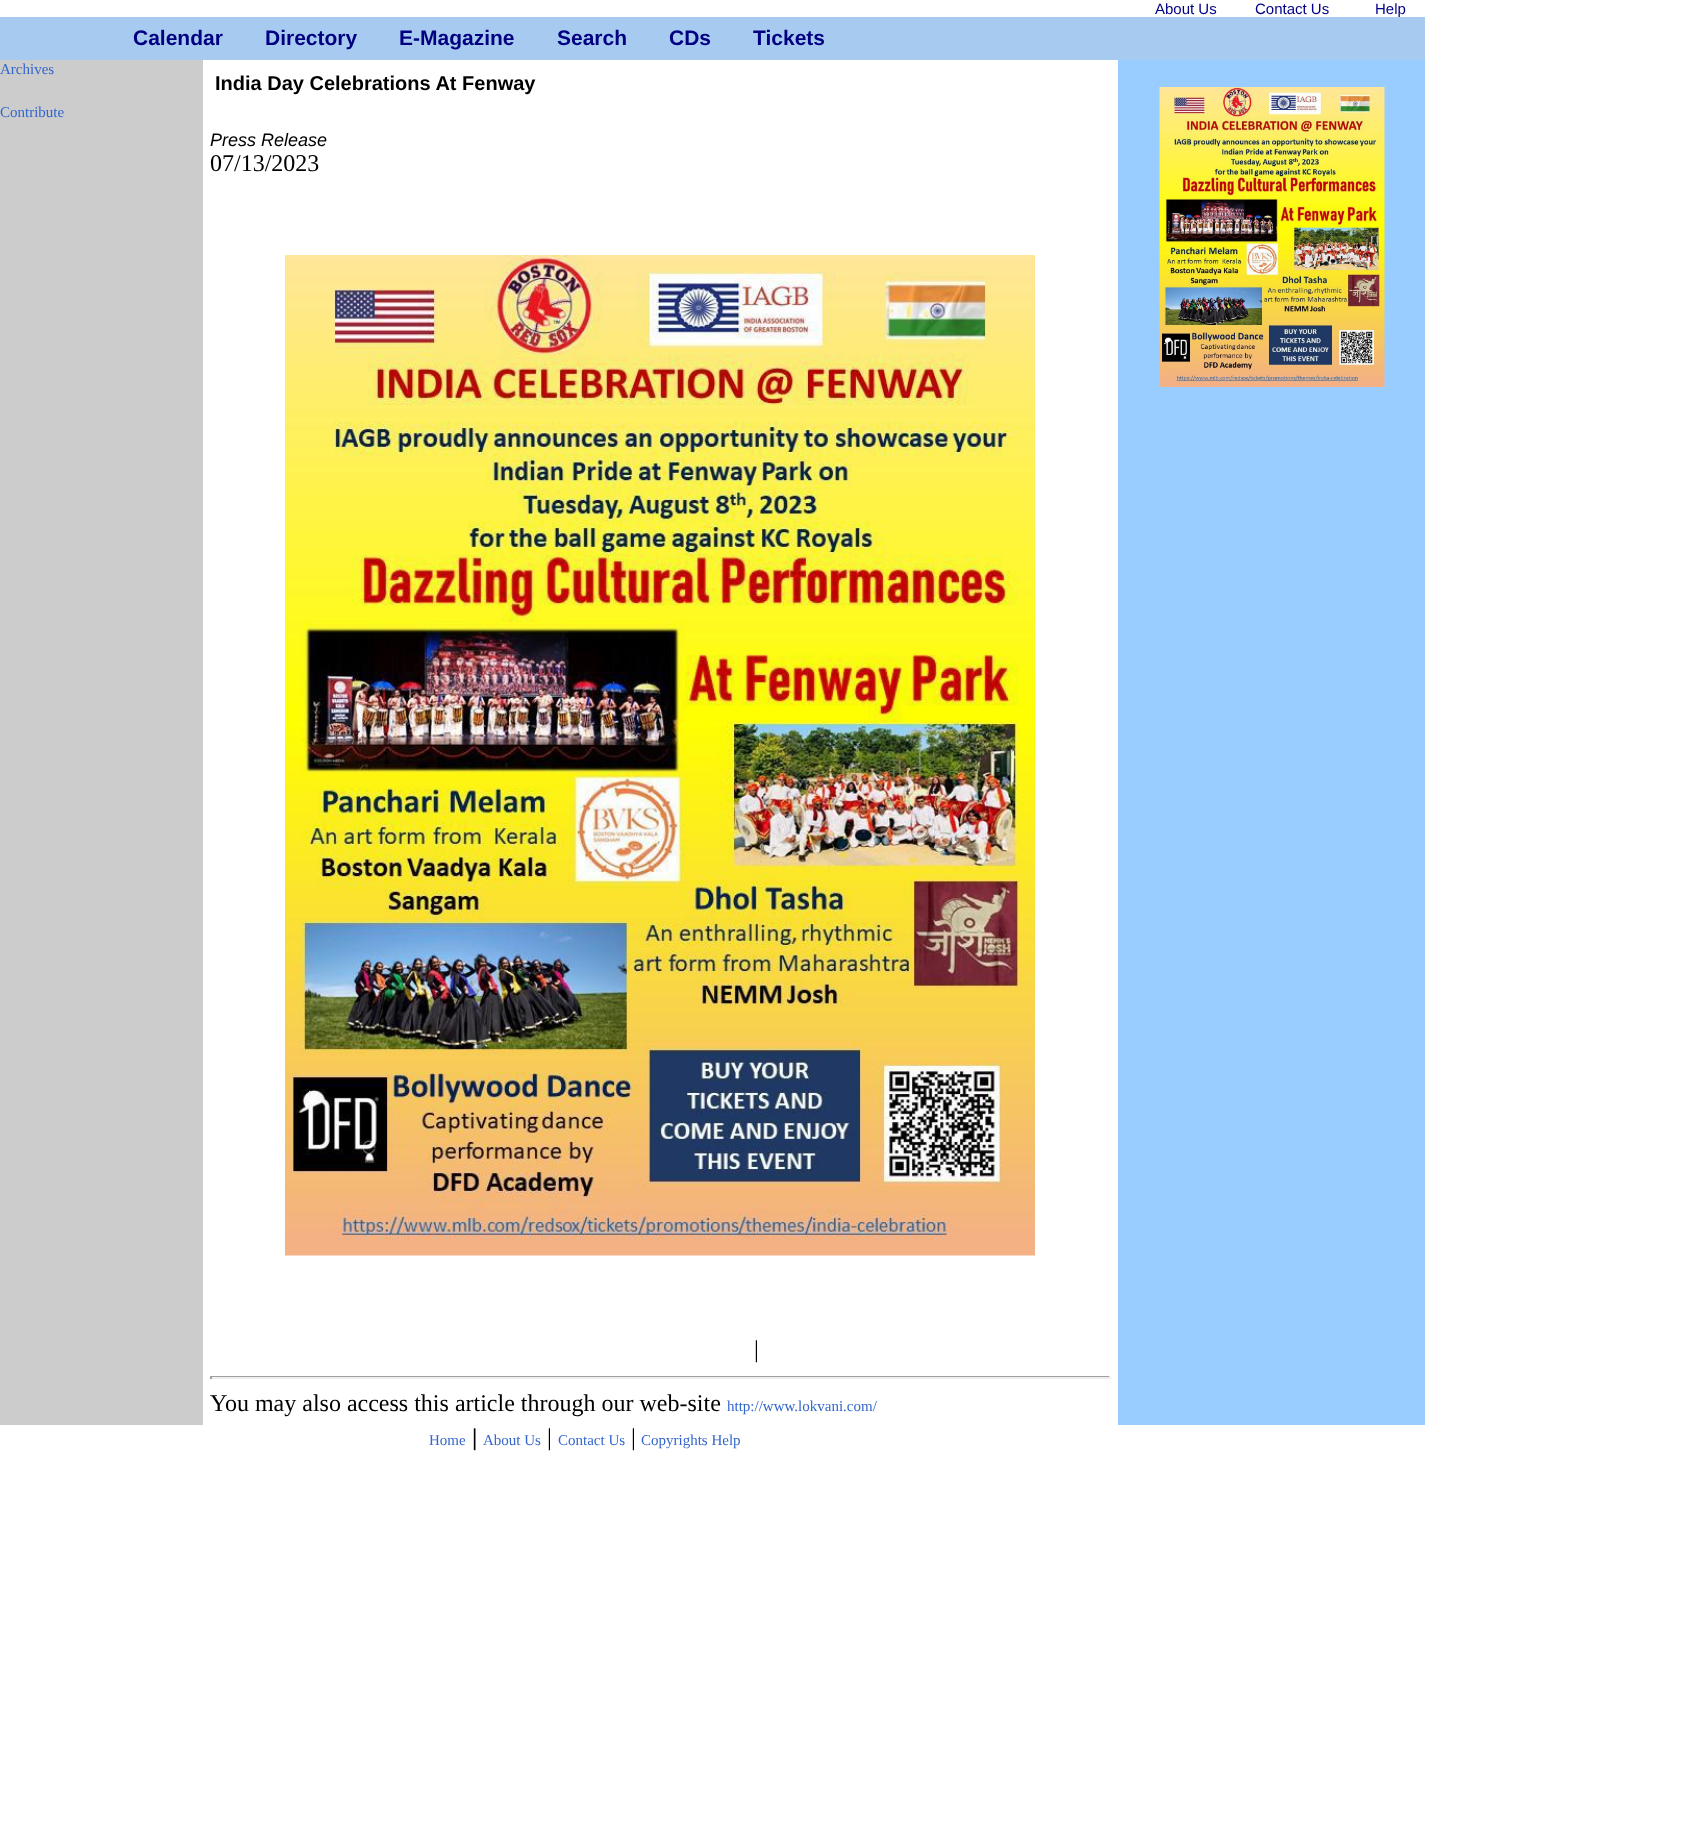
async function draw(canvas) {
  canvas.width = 1703;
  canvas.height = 1844;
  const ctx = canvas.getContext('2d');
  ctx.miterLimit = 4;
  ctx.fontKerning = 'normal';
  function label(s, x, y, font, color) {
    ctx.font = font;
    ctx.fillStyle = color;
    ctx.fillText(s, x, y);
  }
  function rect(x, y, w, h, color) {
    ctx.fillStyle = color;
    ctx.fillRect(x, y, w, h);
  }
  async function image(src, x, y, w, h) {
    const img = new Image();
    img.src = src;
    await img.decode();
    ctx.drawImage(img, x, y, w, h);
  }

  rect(0, 0, 1703, 1844, '#fff');
  label('About Us', 1155, 14, '15px Liberation Sans', '#008');
  label('Contact Us', 1255, 14, '15px Liberation Sans', '#008');
  rect(0, 17, 1425, 43, '#a6caf0');
  label('Help', 1375, 14, '15px Liberation Sans', '#008');
  label('Calendar', 133, 45, 'bold 21px Liberation Sans', '#000080');
  label('Directory', 265, 45, 'bold 21px Liberation Sans', '#000080');
  label('E-Magazine', 399, 45, 'bold 21px Liberation Sans', '#000080');
  label('Search', 557, 45, 'bold 21px Liberation Sans', '#000080');
  label('CDs', 669, 45, 'bold 21px Liberation Sans', '#000080');
  label('Tickets', 753, 45, 'bold 21px Liberation Sans', '#000080');
  rect(0, 60, 203, 1365, '#ccc');
  label('Archives', 0, 74, '15px Liberation Serif', '#36c');
  label('Contribute', 0, 117, '15px Liberation Serif', '#36c');
  label('India Day Celebrations At Fenway', 215, 90, 'bold 20px Liberation Sans', '#000');
  label('Press Release', 210, 146, 'italic 18px Liberation Sans', '#000');
  label('07/13/2023', 210, 171, '24px Liberation Serif', '#000');
  await image('assets/img1.png', 285, 255, 750, 1001);
  label('|', 754, 1357, '24px Liberation Serif', '#000');
  rect(210, 1376, 900, 1, '#9f9f9f');
  rect(1109, 1376, 2, 3, '#eee');
  rect(210, 1377, 900, 2, '#eee');
  rect(210, 1376, 2, 3, '#9f9f9f');
  label('You may also access this article through our web-site', 210, 1411, '24px Liberation Serif', '#000');
  label('http://www.lokvani.com/', 727, 1411, '15px Liberation Serif', '#36c');
  rect(1118, 60, 307, 1365, '#9cf');
  await image('assets/img2.png', 1159, 87, 226, 300);
  label('Home', 429, 1445, '15px Liberation Serif', '#36c');
  label('|', 472, 1445, 'bold 24px Liberation Serif', '#000');
  label('About Us', 483, 1445, '15px Liberation Serif', '#36c');
  label('|', 547, 1445, '24px Liberation Serif', '#000');
  label('Contact Us', 558, 1445, '15px Liberation Serif', '#36c');
  label('|', 631, 1445, '24px Liberation Serif', '#000');
  label('Copyrights Help', 641, 1445, '15px Liberation Serif', '#36c');
}

draw(document.querySelector('canvas'));
